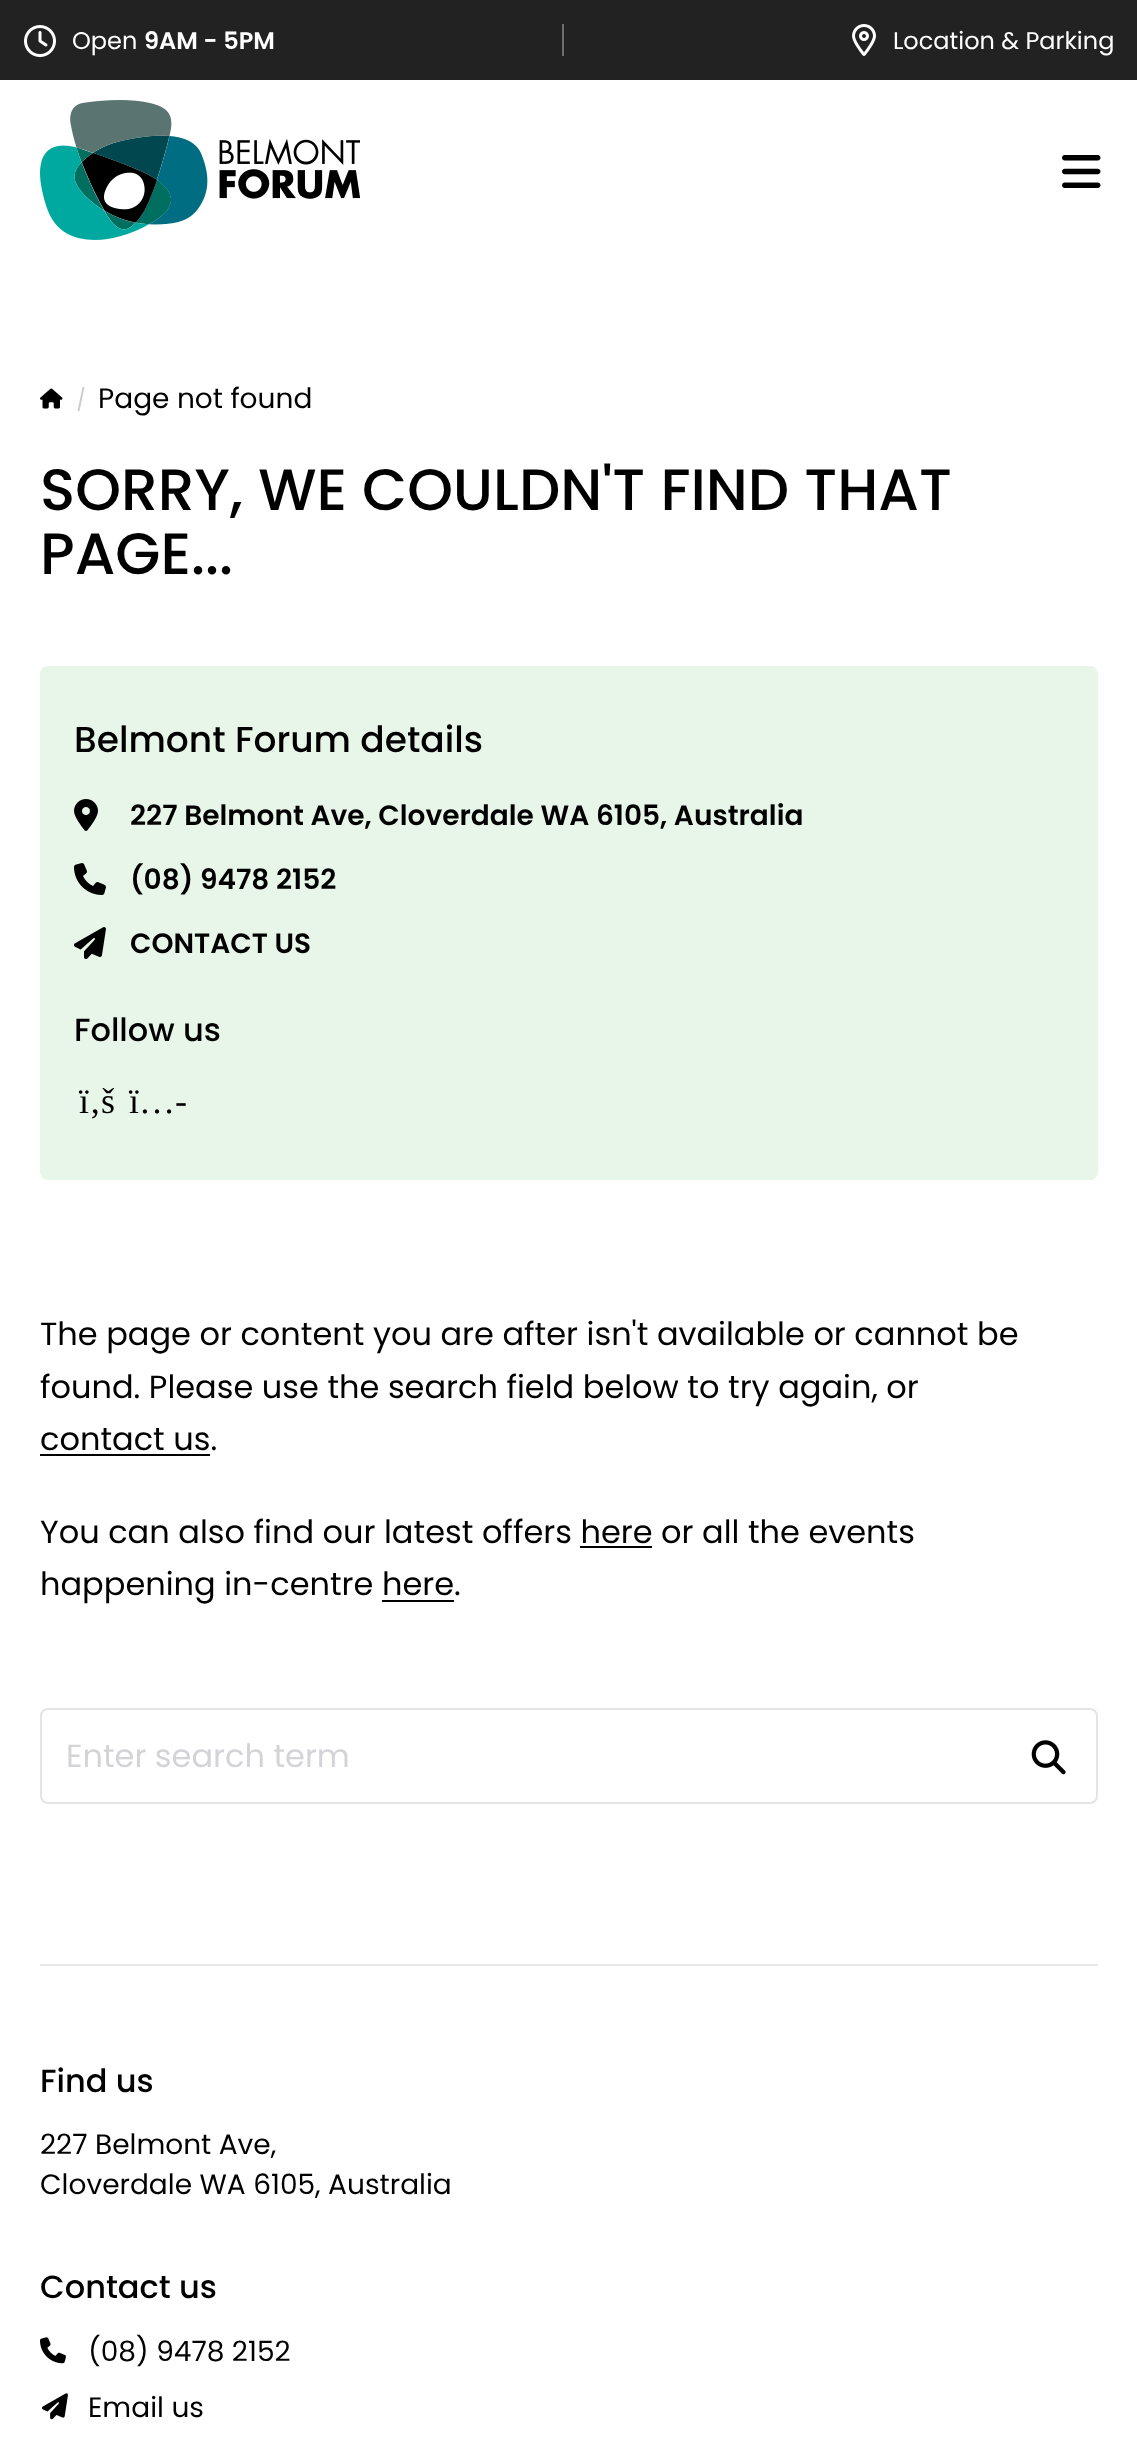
async function draw(canvas) {
  canvas.width = 1137;
  canvas.height = 2462;
  const ctx = canvas.getContext('2d');
  ctx.miterLimit = 4;
  ctx.fontKerning = 'normal';
  function label(s, x, y, font, color) {
    ctx.font = font;
    ctx.fillStyle = color;
    ctx.fillText(s, x, y);
  }
  function rect(x, y, w, h, color) {
    ctx.fillStyle = color;
    ctx.fillRect(x, y, w, h);
  }
  async function image(src, x, y, w, h) {
    const img = new Image();
    img.src = src;
    await img.decode();
    ctx.drawImage(img, x, y, w, h);
  }
  let path;

  rect(0, 0, 1137, 2462, '#fff');
  rect(0, 0, 1137, 80, '#222');
  await image('assets/img1.png', 24, 25, 32, 32);
  label('Open', 72, 49, '24px Poppins', '#fff');
  label('9AM - 5PM', 144, 49, '600 24px Poppins', '#fff');
  rect(562, 24, 2, 32, '#6f6f6f');
  await image('assets/img2.png', 852, 24, 24, 32);
  label('Location & Parking', 893, 49, '24px Poppins', '#fff');
  await image('assets/img3.png', 40, 100, 320, 140);
  await image('assets/img4.png', 1062, 155, 39, 33);
  await image('assets/img5.png', 40, 388, 23, 21);
  ctx.fillStyle = '#ccc';
  path = new Path2D('M82.5 387H84.5L79.5 411H77.5Z');
  ctx.fill(path);
  label('Page not found', 98, 408, '28px Poppins', '#000');
  label('SORRY, WE COULDN\'T FIND THAT', 40, 510, '500 58.3px Poppins', '#000');
  label('PAGE...', 40, 574, '500 58.3px Poppins', '#000');
  ctx.fillStyle = '#e8f5e9';
  ctx.beginPath();
  ctx.roundRect(41, 667, 1056, 512, 7);
  ctx.fill();
  ctx.strokeStyle = '#e8f5e9';
  ctx.lineWidth = 2;
  ctx.stroke();
  label('Belmont Forum details', 74, 752, '500 36px Poppins', '#000');
  await image('assets/img6.png', 74, 799, 24, 32);
  label('227 Belmont Ave, Cloverdale WA 6105, Australia', 130, 825, '600 28px Poppins', '#000');
  await image('assets/img7.png', 74, 863, 32, 32);
  label('(08) 9478 2152', 130, 889, '600 28px Poppins', '#000');
  await image('assets/img8.png', 74, 927, 32, 32);
  label('CONTACT US', 130, 953, '600 28px Poppins', '#000');
  label('Follow us', 74, 1041, '500 32px Poppins', '#000');
  label('ï‚š', 79, 1113, '36px Liberation Serif', '#000');
  label('ï…-', 129, 1113, '36px Liberation Serif', '#000');
  label('The page or content you are after isn\'t available or cannot be', 40, 1345, '32px Poppins', '#000');
  label('found. Please use the search field below to try again, or', 40, 1398, '32px Poppins', '#000');
  label('contact us.', 40, 1450, '32px Poppins', '#000');
  rect(40, 1454, 170, 2, '#000');
  label('You can also find our latest offers here or all the events', 40, 1543, '32px Poppins', '#000');
  rect(580, 1546, 72, 2, '#000');
  label('happening in-centre here.', 40, 1595, '32px Poppins', '#000');
  rect(382, 1600, 72, 2, '#000');
  ctx.beginPath();
  ctx.roundRect(41, 1709, 1056, 94, 7);
  ctx.strokeStyle = '#e4e4e4';
  ctx.stroke();
  label('Enter search term', 66, 1767, '32px Poppins', '#d4d4d8');
  await image('assets/img9.png', 1031, 1740, 35, 35);
  rect(40, 1964, 1058, 2, '#e5e7eb');
  label('Find us', 40, 2092, '500 32px Poppins', '#000');
  label('227 Belmont Ave,', 40, 2154, '28px Poppins', '#000');
  label('Cloverdale WA 6105, Australia', 40, 2194, '28px Poppins', '#000');
  label('Contact us', 40, 2298, '500 32px Poppins', '#000');
  await image('assets/img10.png', 40, 2337, 26, 27);
  label('(08) 9478 2152', 88, 2361, '28px Poppins', '#000');
  await image('assets/img11.png', 42, 2393, 26, 27);
  label('Email us', 88, 2417, '28px Poppins', '#000');
}

draw(document.querySelector('canvas'));
